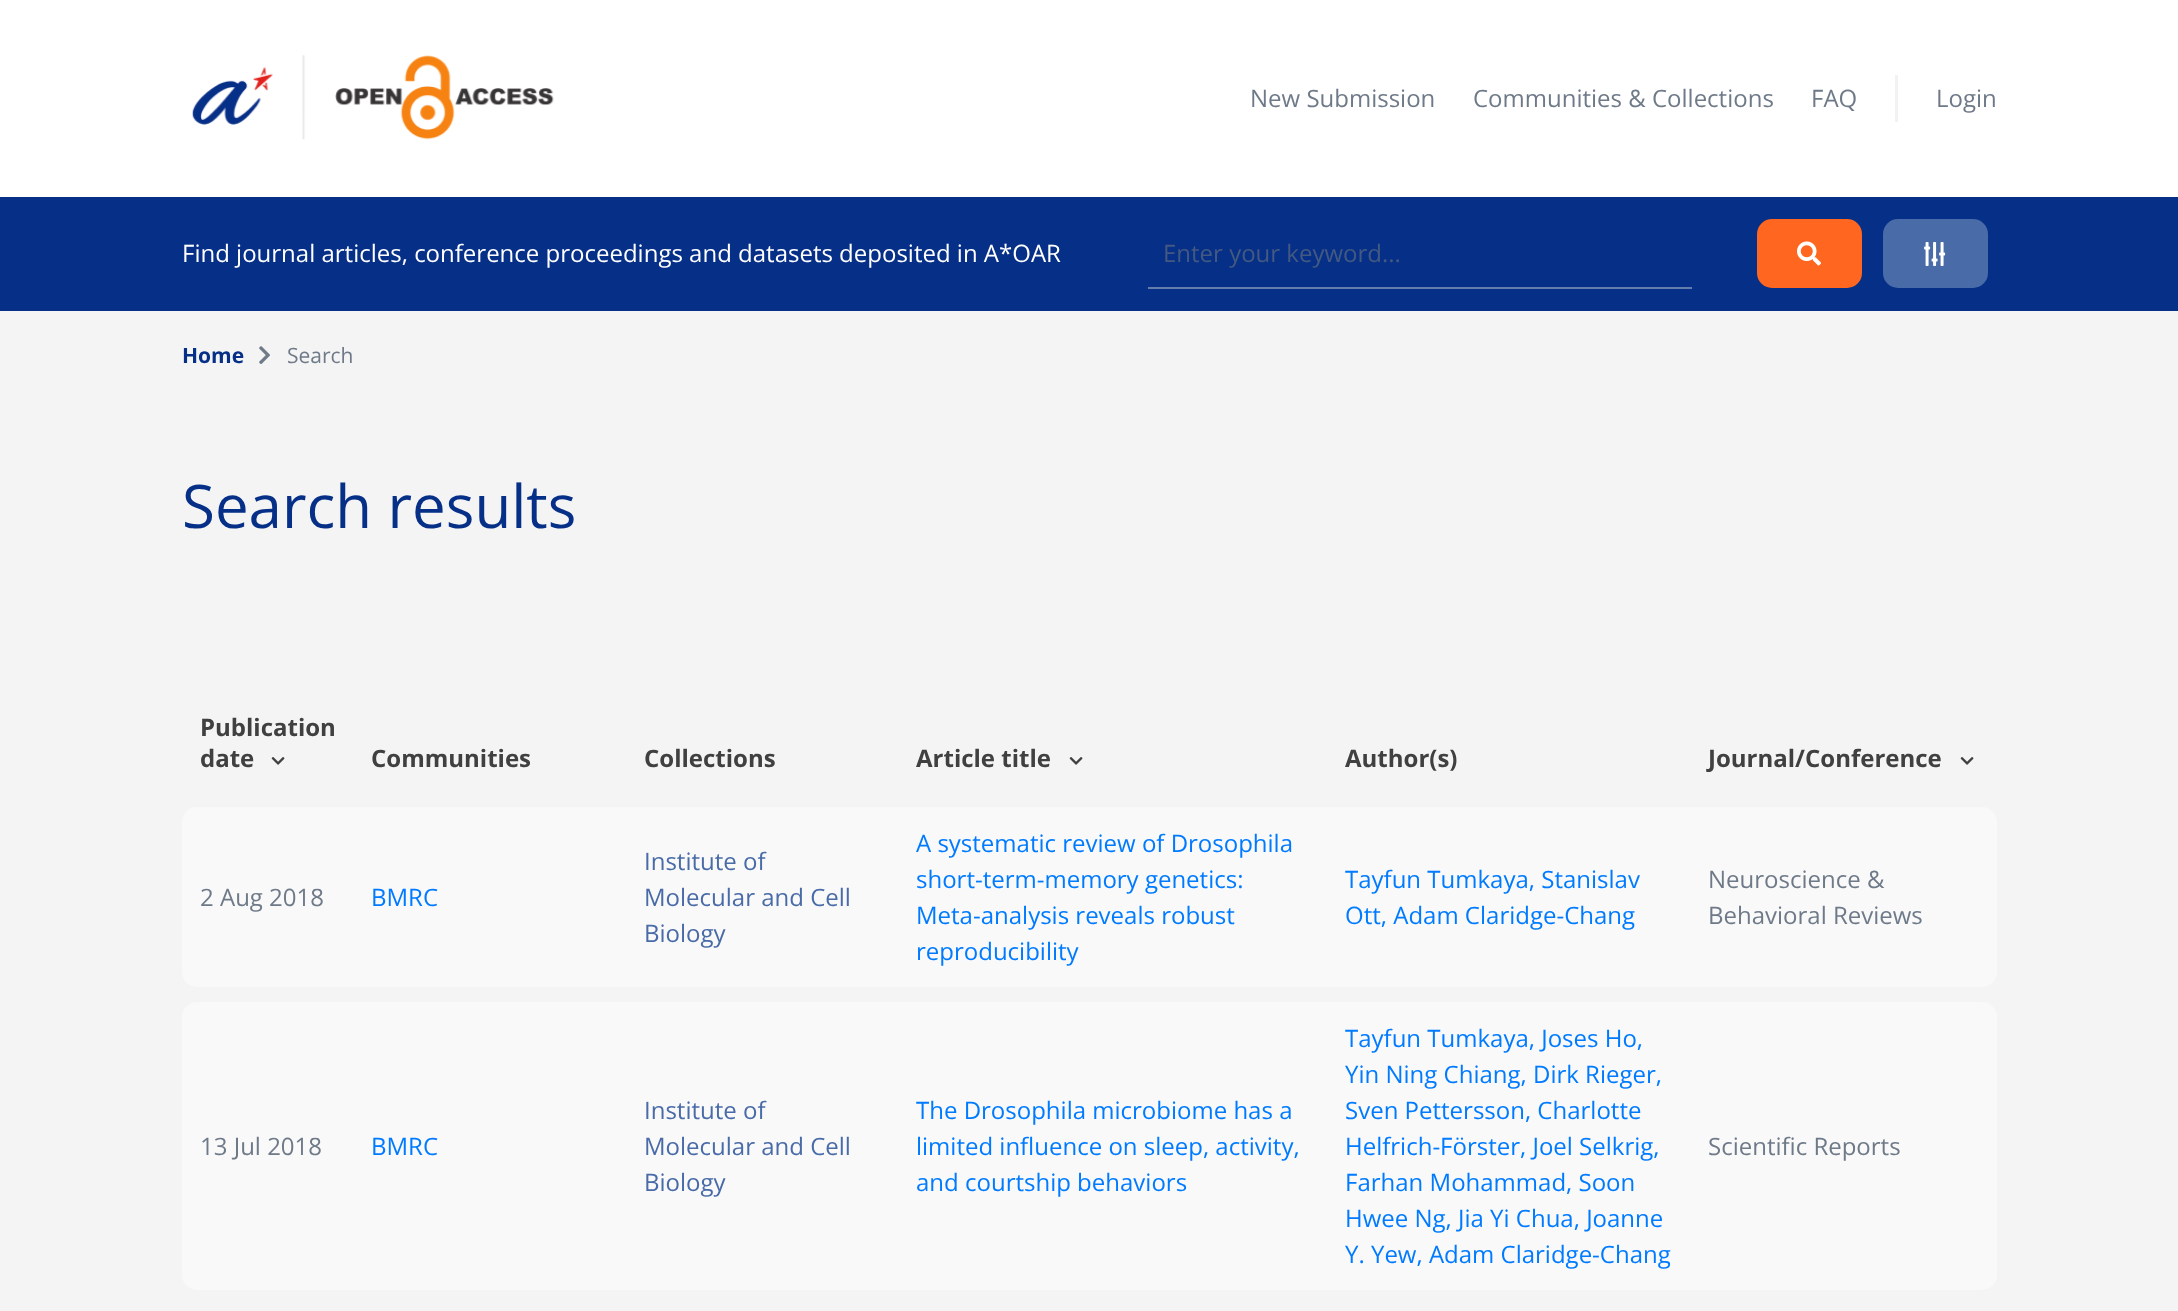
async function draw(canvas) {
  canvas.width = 2178;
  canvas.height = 1311;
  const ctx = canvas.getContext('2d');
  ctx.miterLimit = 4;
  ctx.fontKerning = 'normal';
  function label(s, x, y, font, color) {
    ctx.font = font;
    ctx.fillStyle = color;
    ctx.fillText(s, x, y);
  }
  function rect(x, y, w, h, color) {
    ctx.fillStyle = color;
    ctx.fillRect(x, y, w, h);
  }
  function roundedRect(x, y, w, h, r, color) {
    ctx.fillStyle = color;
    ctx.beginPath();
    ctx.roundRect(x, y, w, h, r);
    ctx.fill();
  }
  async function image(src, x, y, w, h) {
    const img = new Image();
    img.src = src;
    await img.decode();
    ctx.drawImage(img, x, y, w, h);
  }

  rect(0, 0, 2178, 1311, '#f4f4f4');
  rect(0, 0, 2178, 197, '#fff');
  await image('assets/img1.png', 192, 55, 362, 85);
  label('New Submission', 1250, 107, '24px Open Sans', '#6f7a89');
  label('Communities & Collections', 1473, 107, '24px Open Sans', '#6f7a89');
  label('FAQ', 1811, 107, '24px Open Sans', '#6f7a89');
  rect(1895, 75, 3, 47, '#f2f2f2');
  label('Login', 1936, 107, '24px Open Sans', '#6f7a89');
  rect(0, 197, 2178, 114, '#062f87');
  label('Find journal articles, conference proceedings and datasets deposited in A*OAR', 182, 262, '24px Open Sans', '#fff');
  rect(1148, 287, 544, 2, '#637dad');
  label('Enter your keyword...', 1163, 262, '24px Open Sans', '#435981');
  roundedRect(1757, 219, 105, 69, 15, '#ff6720');
  await image('assets/img2.png', 1797, 241, 24, 25);
  roundedRect(1883, 219, 105, 69, 15, '#496ba8');
  await image('assets/img3.png', 1924, 242, 22, 24);
  label('Home', 182, 363, 'bold 21px Open Sans', '#062f87');
  await image('assets/img4.png', 259, 346, 11, 18);
  label('Search', 287, 363, '21px Open Sans', '#6f7a89');
  label('Search results', 182, 528, '60px Open Sans', '#062f87');
  label('Publication', 200, 736, 'bold 24px Open Sans', '#404040');
  label('date', 200, 767, 'bold 24px Open Sans', '#404040');
  await image('assets/img5.png', 271, 757, 14, 8);
  label('Communities', 371, 767, 'bold 24px Open Sans', '#404040');
  label('Collections', 644, 767, 'bold 24px Open Sans', '#404040');
  label('Article title', 916, 767, 'bold 24px Open Sans', '#404040');
  await image('assets/img5.png', 1069, 757, 14, 8);
  label('Author(s)', 1345, 767, 'bold 24px Open Sans', '#404040');
  label('Journal/Conference', 1708, 767, 'bold 24px Open Sans', '#404040');
  await image('assets/img5.png', 1960, 757, 14, 8);
  roundedRect(182, 807, 1815, 180, 15, '#f9f9f9');
  label('2 Aug 2018', 200, 906, '24px Open Sans', '#6f7a89');
  label('BMRC', 371, 906, '24px Open Sans', '#007bff');
  label('Institute of', 644, 870, '24px Open Sans', '#496ba8');
  label('Molecular and Cell', 644, 906, '24px Open Sans', '#496ba8');
  label('Biology', 644, 942, '24px Open Sans', '#496ba8');
  label('A systematic review of Drosophila', 916, 852, '24px Open Sans', '#007bff');
  label('short-term-memory genetics:', 916, 888, '24px Open Sans', '#007bff');
  label('Meta-analysis reveals robust', 916, 924, '24px Open Sans', '#007bff');
  label('reproducibility', 916, 960, '24px Open Sans', '#007bff');
  label('Tayfun Tumkaya, Stanislav', 1345, 888, '24px Open Sans', '#007bff');
  label('Ott, Adam Claridge-Chang', 1345, 924, '24px Open Sans', '#007bff');
  label('Neuroscience &', 1708, 888, '24px Open Sans', '#6f7a89');
  label('Behavioral Reviews', 1708, 924, '24px Open Sans', '#6f7a89');
  roundedRect(182, 1002, 1815, 288, 15, '#f9f9f9');
  label('13 Jul 2018', 200, 1155, '24px Open Sans', '#6f7a89');
  label('BMRC', 371, 1155, '24px Open Sans', '#007bff');
  label('Institute of', 644, 1119, '24px Open Sans', '#496ba8');
  label('Molecular and Cell', 644, 1155, '24px Open Sans', '#496ba8');
  label('Biology', 644, 1191, '24px Open Sans', '#496ba8');
  label('The Drosophila microbiome has a', 916, 1119, '24px Open Sans', '#007bff');
  label('limited influence on sleep, activity,', 916, 1155, '24px Open Sans', '#007bff');
  label('and courtship behaviors', 916, 1191, '24px Open Sans', '#007bff');
  label('Tayfun Tumkaya, Joses Ho,', 1345, 1047, '24px Open Sans', '#007bff');
  label('Yin Ning Chiang, Dirk Rieger,', 1345, 1083, '24px Open Sans', '#007bff');
  label('Sven Pettersson, Charlotte', 1345, 1119, '24px Open Sans', '#007bff');
  label('Helfrich-Förster, Joel Selkrig,', 1345, 1155, '24px Open Sans', '#007bff');
  label('Farhan Mohammad, Soon', 1345, 1191, '24px Open Sans', '#007bff');
  label('Hwee Ng, Jia Yi Chua, Joanne', 1345, 1227, '24px Open Sans', '#007bff');
  label('Y. Yew, Adam Claridge-Chang', 1345, 1263, '24px Open Sans', '#007bff');
  label('Scientific Reports', 1708, 1155, '24px Open Sans', '#6f7a89');
}

draw(document.querySelector('canvas'));
